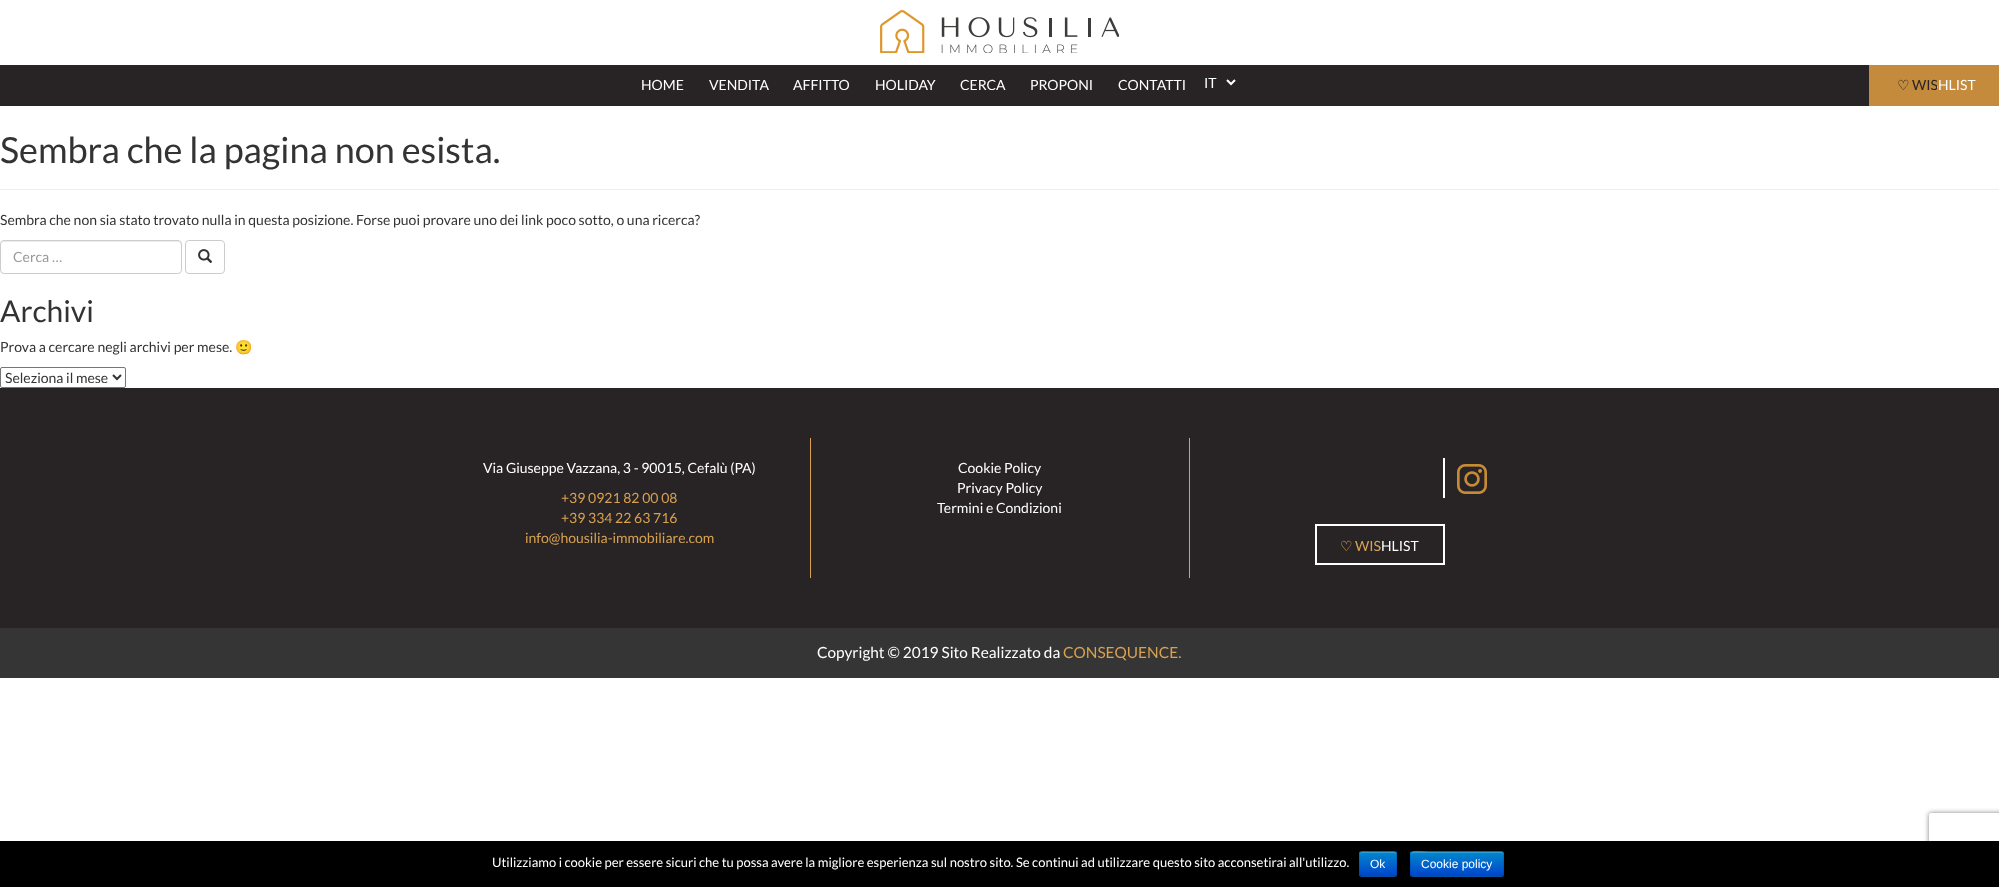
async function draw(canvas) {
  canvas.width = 1999;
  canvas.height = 887;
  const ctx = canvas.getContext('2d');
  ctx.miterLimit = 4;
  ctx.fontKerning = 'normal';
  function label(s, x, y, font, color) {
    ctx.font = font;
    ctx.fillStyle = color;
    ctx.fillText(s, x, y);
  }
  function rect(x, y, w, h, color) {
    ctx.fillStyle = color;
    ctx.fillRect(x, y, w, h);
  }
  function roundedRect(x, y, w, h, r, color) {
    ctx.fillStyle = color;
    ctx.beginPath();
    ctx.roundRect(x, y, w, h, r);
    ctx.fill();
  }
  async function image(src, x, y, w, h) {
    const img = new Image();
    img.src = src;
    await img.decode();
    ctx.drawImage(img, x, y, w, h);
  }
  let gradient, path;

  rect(0, 0, 1999, 887, '#fff');
  await image('assets/img1.png', 880, 10, 239, 43);
  rect(0, 65, 1869, 41, '#282425');
  label('HOME', 641, 90, '14px Lato', '#fff');
  label('VENDITA', 709, 90, '14px Lato', '#fff');
  label('AFFITTO', 793, 90, '14px Lato', '#fff');
  label('HOLIDAY', 875, 90, '14px Lato', '#fff');
  label('CERCA', 960, 90, '14px Lato', '#fff');
  label('PROPONI', 1030, 90, '14px Lato', '#fff');
  label('CONTATTI', 1118, 90, '14px Lato', '#fff');
  path = new Path2D('M1227 80L1231 84L1235 80');
  ctx.strokeStyle = '#fff';
  ctx.lineWidth = 2;
  ctx.stroke(path);
  label('IT', 1204, 88, '14px Lato', '#fff');
  rect(1869, 65, 130, 41, '#c58b3c');
  ctx.font = '14px DejaVu Sans';
  gradient = ctx.createLinearGradient(1897, 85, 1976, 85);
  gradient.addColorStop(0, '#282425');
  gradient.addColorStop(0.5, '#282425');
  gradient.addColorStop(0.5, '#fff');
  ctx.fillStyle = gradient;
  ctx.fillText('♡', 1897, 90);
  ctx.font = '14px Lato';
  ctx.fillText('WISHLIST', 1912, 90);
  rect(0, 189, 1999, 1, '#eee');
  label('Sembra che la pagina non esista.', 0, 163, '36px Lato', '#333');
  label('Sembra che non sia stato trovato nulla in questa posizione. Forse puoi provare uno dei link poco sotto, o una ricerca?', 0, 225, '14px Lato', '#333');
  ctx.fillStyle = '#ececec';
  path = new Path2D('M4 242H179L180 243L181 245V244C181 242 180 241 178 241H4C2 241 1 242 1 244V245C1 243 2 242 4 242Z');
  ctx.fill(path);
  ctx.beginPath();
  ctx.roundRect(0.5, 240.5, 181, 33, 3.5);
  ctx.strokeStyle = '#ccc';
  ctx.lineWidth = 1;
  ctx.stroke();
  label('Cerca …', 13, 262, '14px Lato', '#999');
  ctx.beginPath();
  ctx.roundRect(185.5, 240.5, 39, 33, 3.5);
  ctx.stroke();
  await image('assets/img2.png', 198, 249, 15, 14);
  label('Archivi', 0, 322, '30px Lato', '#333');
  label('Prova a cercare negli archivi per mese.', 0, 352, '14px Lato', '#333');
  label('🙂', 235, 352, '14px Noto Color Emoji', '#333');
  ctx.beginPath();
  ctx.roundRect(0.5, 367.5, 125, 20, 1.5);
  ctx.strokeStyle = '#767676';
  ctx.stroke();
  path = new Path2D('M113 375L117 379L121 375');
  ctx.strokeStyle = '#333';
  ctx.lineWidth = 2;
  ctx.stroke(path);
  label('Seleziona il mese', 5, 383, '14px Lato', '#333');
  rect(0, 388, 1999, 240, '#282425');
  label('Via Giuseppe Vazzana, 3 - 90015, Cefalù (PA)', 483, 473, '14px Lato', '#fff');
  label('+39 0921 82 00 08', 561, 503, '14px Lato', '#d7a150');
  label('+39 334 22 63 716', 561, 523, '14px Lato', '#d7a150');
  label('info@housilia-immobiliare.com', 525, 543, '14px Lato', '#d7a150');
  rect(1189, 438, 1, 140, '#d7a150');
  rect(810, 438, 1, 140, '#d7a150');
  label('Cookie Policy', 958, 473, '14px Lato', '#fff');
  label('Privacy Policy', 957, 493, '14px Lato', '#fff');
  label('Termini e Condizioni', 937, 513, '14px Lato', '#fff');
  rect(1443, 458, 2, 40, '#fff');
  await image('assets/img3.png', 1457, 464, 30, 30);
  ctx.strokeStyle = '#fff';
  ctx.strokeRect(1316, 525, 128, 39);
  ctx.font = '14px DejaVu Sans';
  gradient = ctx.createLinearGradient(1340, 546, 1419, 546);
  gradient.addColorStop(0, '#d7a150');
  gradient.addColorStop(0.5, '#d7a150');
  gradient.addColorStop(0.5, '#fff');
  ctx.fillStyle = gradient;
  ctx.fillText('♡', 1340, 551);
  ctx.font = '14px Lato';
  ctx.fillText('WISHLIST', 1355, 551);
  rect(0, 628, 1999, 50, '#353535');
  label('Copyright © 2019 Sito Realizzato da', 817, 658, '15.4px Lato', '#fff');
  label('CONSEQUENCE.', 1063, 658, '15.4px Lato', '#d7a150');
  ctx.save();
  path = new Path2D('M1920 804H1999V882H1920ZM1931 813H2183C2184 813 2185 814 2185 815V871C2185 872 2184 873 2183 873H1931C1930 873 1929 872 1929 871V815C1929 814 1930 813 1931 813Z');
  ctx.clip(path, 'evenodd');
  ctx.fillStyle = '#808080';
  ctx.filter = 'blur(2.5px)';
  ctx.beginPath();
  ctx.roundRect(1929, 813, 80, 60, 2);
  ctx.fill();
  ctx.filter = 'none';
  ctx.restore();
  rect(0, 841, 1999, 46, '#000');
  label('Utilizziamo i cookie per essere sicuri che tu possa avere la migliore esperienza sul nostro sito. Se continui ad utilizzare questo sito acconsetirai all\'utilizzo.', 492, 867, '13px Lato', '#fff');
  roundedRect(1359, 851, 38, 26, 3, '#006dcc');
  ctx.save();
  ctx.beginPath();
  ctx.roundRect(1359, 851, 38, 26, 3);
  ctx.clip();
  gradient = ctx.createLinearGradient(1378, 852, 1378, 876);
  gradient.addColorStop(0, '#08c');
  gradient.addColorStop(1, '#04c');
  ctx.fillStyle = gradient;
  ctx.fillRect(1359, 852, 38, 24);
  ctx.restore();
  ctx.fillStyle = '#ffffff33';
  path = new Path2D('M1362 853H1394C1395 853 1396 854 1396 855C1396 850.5 1392.5 852 1388.5 852H1367.5C1363.5 852 1360 850.5 1360 855C1360 854 1361 853 1362 853Z');
  ctx.fill(path);
  path = new Path2D('M1396 876C1395.5 876 1394.5 876.5 1394 876.5H1362C1361.5 876.5 1360.5 876 1360 876');
  ctx.strokeStyle = '#00000040';
  ctx.lineWidth = 1;
  ctx.stroke(path);
  path = new Path2D('M1360 876C1360 875.5 1359.5 874.5 1359.5 874V854C1359.5 853.5 1360 852.5 1360 852C1360.5 852 1361.5 851.5 1362 851.5H1394C1394.5 851.5 1395.5 852 1396 852C1396 852.5 1396.5 853.5 1396.5 854V874C1396.5 874.5 1396 875.5 1396 876');
  ctx.strokeStyle = '#0000001a';
  ctx.stroke(path);
  label('Ok', 1370, 868, '12px Liberation Sans', '#fff');
  roundedRect(1410, 851, 94, 26, 3, '#006dcc');
  ctx.save();
  ctx.beginPath();
  ctx.roundRect(1410, 851, 94, 26, 3);
  ctx.clip();
  gradient = ctx.createLinearGradient(1457, 852, 1457, 876);
  gradient.addColorStop(0, '#08c');
  gradient.addColorStop(1, '#04c');
  ctx.fillStyle = gradient;
  ctx.fillRect(1410, 852, 94, 24);
  ctx.restore();
  ctx.fillStyle = '#ffffff33';
  path = new Path2D('M1413 853H1501C1502 853 1503 854 1503 855C1503 854 1503 852 1501 852H1428C1425 852 1411 848 1411 855C1411 854 1412 853 1413 853Z');
  ctx.fill(path);
  path = new Path2D('M1503 876H1502.5C1500.5 877.5 1435.5 876.5 1427.5 876.5H1413L1411 876');
  ctx.strokeStyle = '#00000040';
  ctx.stroke(path);
  path = new Path2D('M1411 876C1409.5 874 1410.5 869.5 1410.5 867.5C1410.5 848 1407 851.5 1427.5 851.5H1486.5C1507 851.5 1503.5 848 1503.5 867.5C1503.5 869.5 1504.5 874 1503 876');
  ctx.strokeStyle = '#0000001a';
  ctx.stroke(path);
  label('Cookie policy', 1421, 868, '12px Liberation Sans', '#fff');
}

draw(document.querySelector('canvas'));
